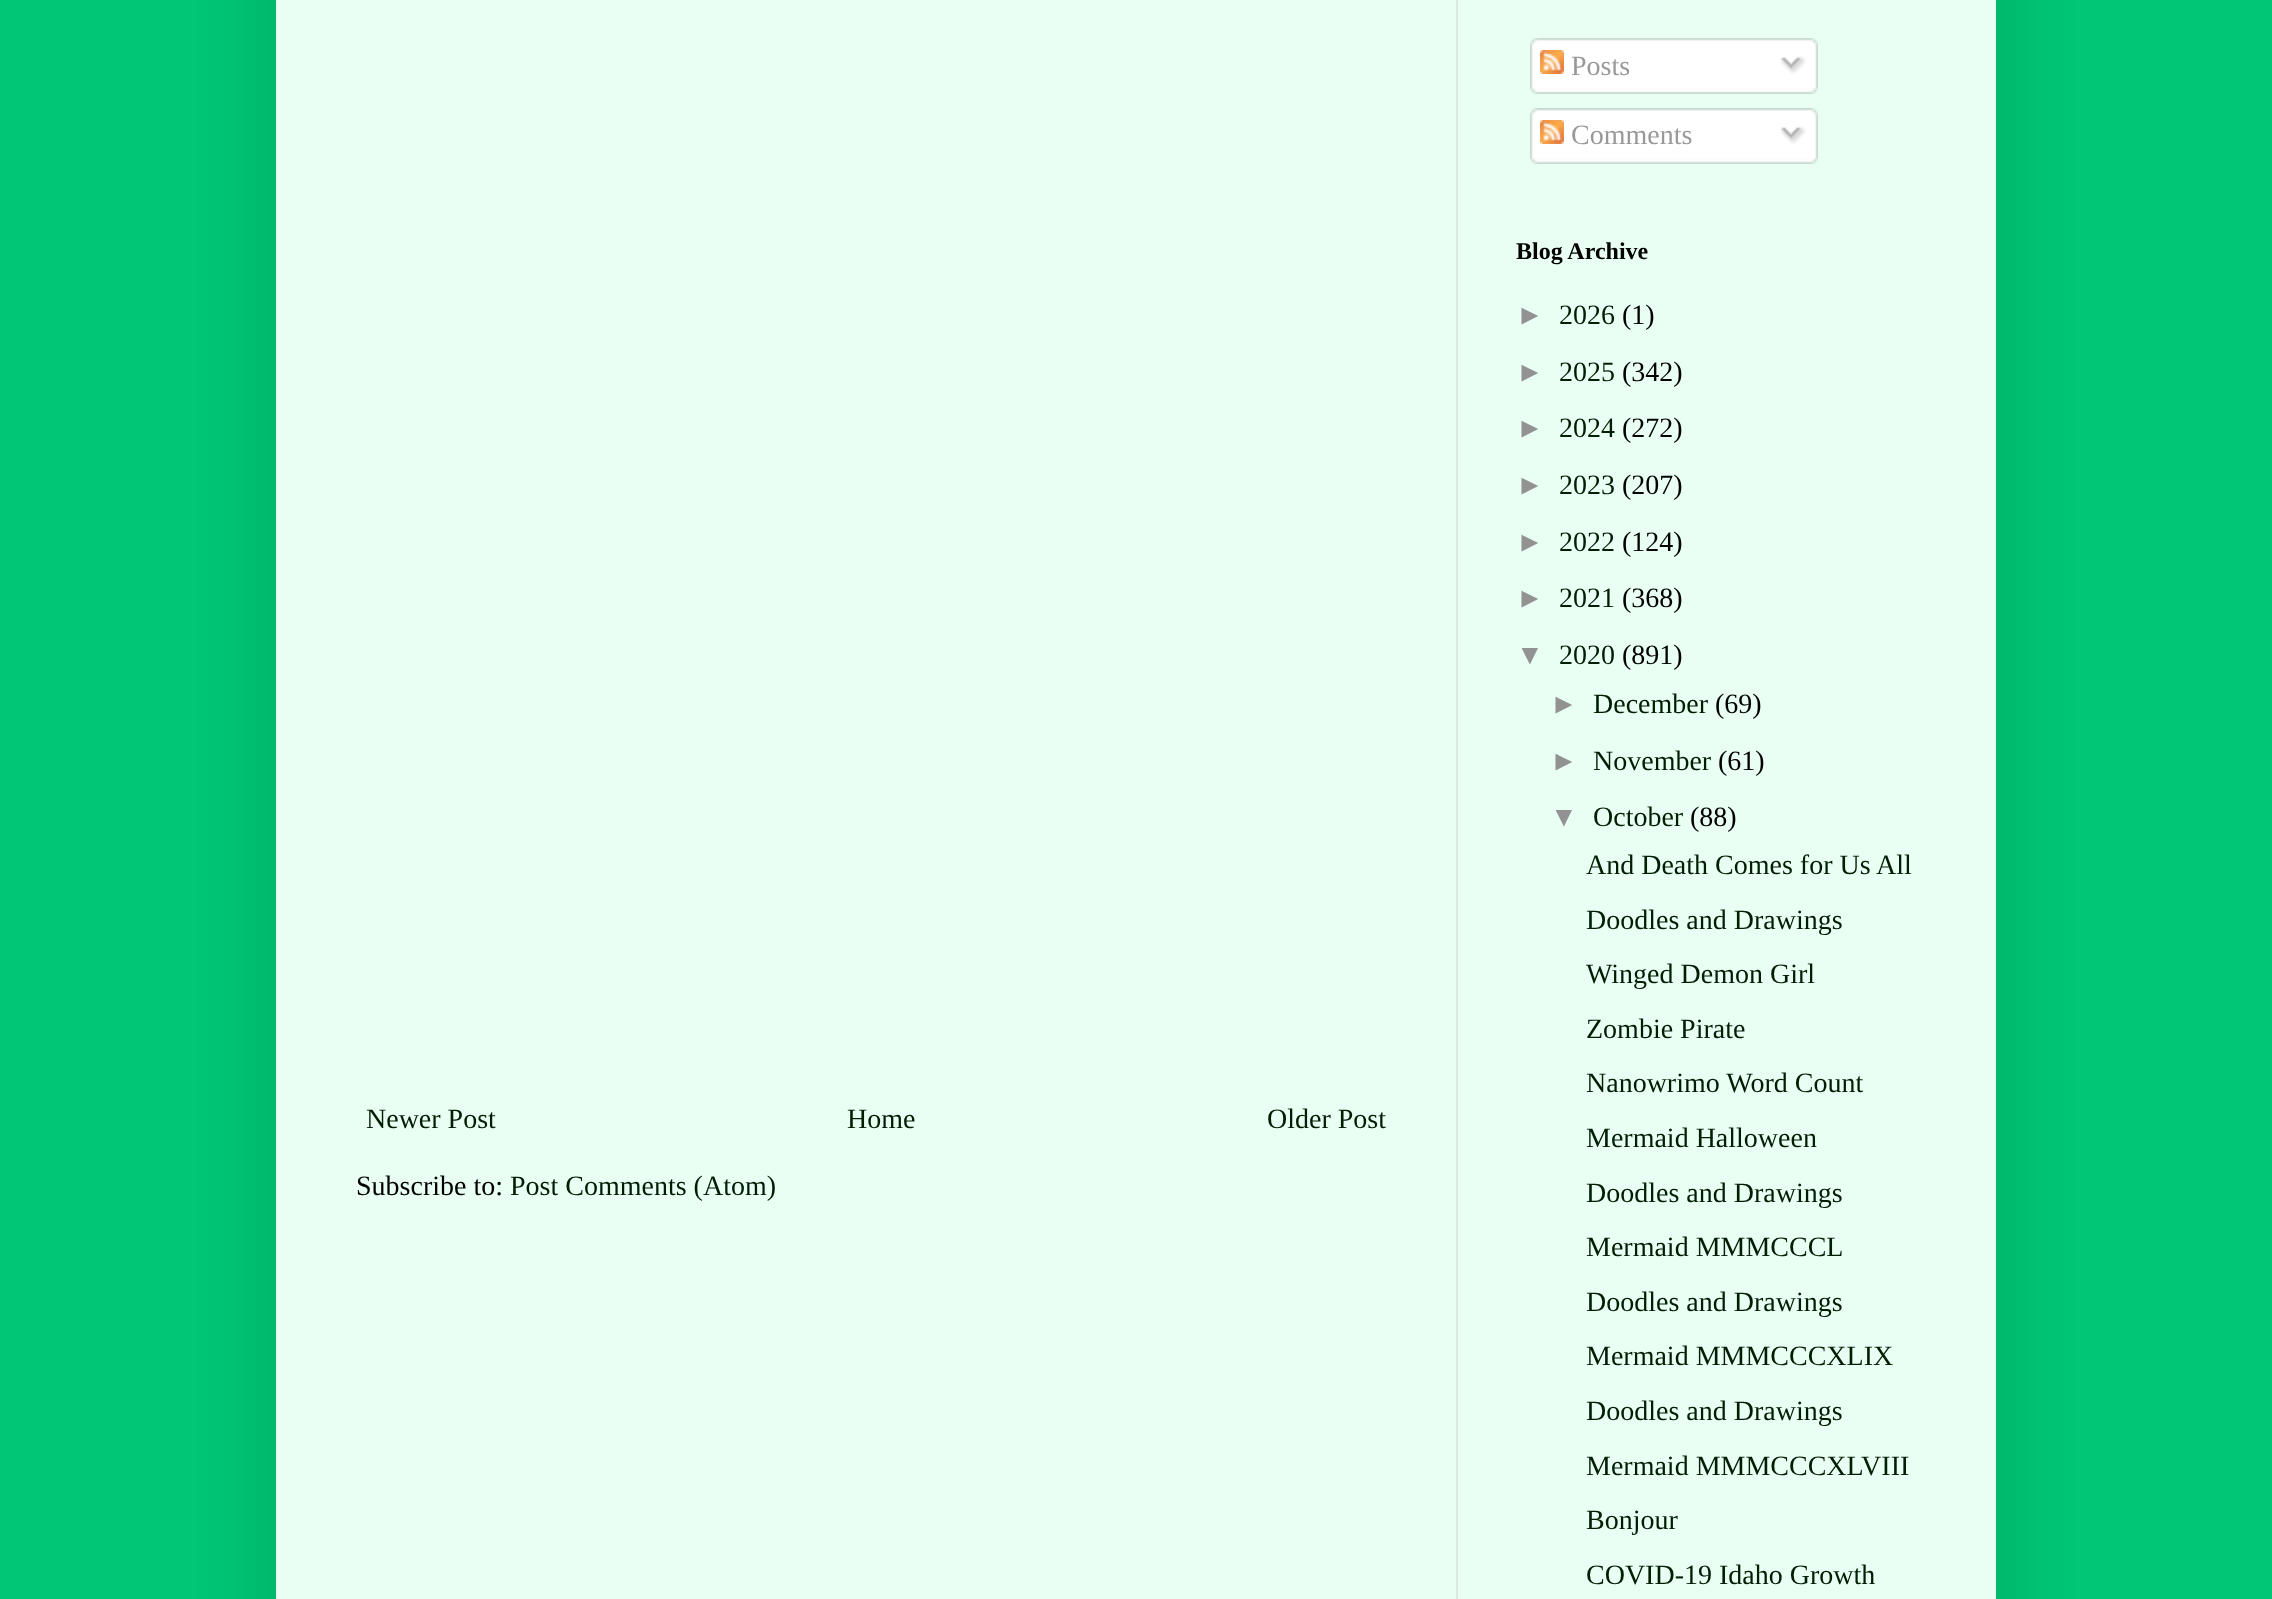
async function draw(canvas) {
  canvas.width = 2272;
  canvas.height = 1599;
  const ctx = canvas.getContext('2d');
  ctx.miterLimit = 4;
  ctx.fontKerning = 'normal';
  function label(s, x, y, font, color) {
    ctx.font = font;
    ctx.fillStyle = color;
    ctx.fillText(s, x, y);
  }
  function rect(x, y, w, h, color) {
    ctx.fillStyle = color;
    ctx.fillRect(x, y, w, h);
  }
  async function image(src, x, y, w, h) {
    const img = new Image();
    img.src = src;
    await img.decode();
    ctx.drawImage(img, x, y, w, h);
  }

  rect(0, 0, 2272, 1599, '#00c675');
  ctx.fillStyle = '#00000026';
  ctx.filter = 'blur(40px)';
  ctx.beginPath();
  ctx.rect(276, -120, 1720, 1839);
  ctx.fill();
  ctx.filter = 'none';
  rect(276, 0, 1720, 1599, '#e9fff3');
  rect(1456, 0, 2, 1599, '#d9ecde');
  label('Newer Post', 366, 1128, '28px Liberation Serif', '#001e04');
  label('Home', 847, 1128, '28px Liberation Serif', '#001e04');
  label('Older Post', 1267, 1128, '28px Liberation Serif', '#001e04');
  label('Subscribe to:', 356, 1195, '28px Liberation Serif', '#000');
  label('Post Comments (Atom)', 510, 1195, '28px Liberation Serif', '#001e04');
  await image('assets/img1.png', 1530, 38, 288, 50);
  await image('assets/img2.png', 1540, 50, 24, 24);
  label('Posts', 1571, 75, '28px Liberation Serif', '#999');
  await image('assets/img3.png', 1780, 56, 26, 18);
  await image('assets/img4.png', 1530, 88, 288, 6);
  await image('assets/img1.png', 1530, 108, 288, 50);
  await image('assets/img2.png', 1540, 120, 24, 24);
  label('Comments', 1571, 144, '28px Liberation Serif', '#999');
  await image('assets/img3.png', 1780, 126, 26, 18);
  await image('assets/img4.png', 1530, 158, 288, 6);
  label('Blog Archive', 1516, 259, 'bold 24px Liberation Serif', '#000');
  label('►', 1516, 324, '28px Liberation Sans', '#929292');
  label('2026', 1559, 324, '28px Liberation Serif', '#001e04');
  label('(1)', 1622, 324, '28px Liberation Serif', '#000');
  label('►', 1516, 381, '28px Liberation Sans', '#929292');
  label('2025', 1559, 381, '28px Liberation Serif', '#001e04');
  label('(342)', 1622, 381, '28px Liberation Serif', '#000');
  label('►', 1516, 437, '28px Liberation Sans', '#929292');
  label('2024', 1559, 437, '28px Liberation Serif', '#001e04');
  label('(272)', 1622, 437, '28px Liberation Serif', '#000');
  label('►', 1516, 494, '28px Liberation Sans', '#929292');
  label('2023', 1559, 494, '28px Liberation Serif', '#001e04');
  label('(207)', 1622, 494, '28px Liberation Serif', '#000');
  label('►', 1516, 551, '28px Liberation Sans', '#929292');
  label('2022', 1559, 551, '28px Liberation Serif', '#001e04');
  label('(124)', 1622, 551, '28px Liberation Serif', '#000');
  label('►', 1516, 607, '28px Liberation Sans', '#929292');
  label('2021', 1559, 607, '28px Liberation Serif', '#001e04');
  label('(368)', 1622, 607, '28px Liberation Serif', '#000');
  label('▼', 1516, 664, '28px Liberation Sans', '#929292');
  label('2020', 1559, 664, '28px Liberation Serif', '#001e04');
  label('(891)', 1622, 664, '28px Liberation Serif', '#000');
  label('►', 1550, 713, '28px Liberation Sans', '#929292');
  label('December', 1593, 713, '28px Liberation Serif', '#001e04');
  label('(69)', 1715, 713, '28px Liberation Serif', '#000');
  label('►', 1550, 770, '28px Liberation Sans', '#929292');
  label('November', 1593, 770, '28px Liberation Serif', '#001e04');
  label('(61)', 1718, 770, '28px Liberation Serif', '#000');
  label('▼', 1550, 826, '28px Liberation Sans', '#929292');
  label('October', 1593, 826, '28px Liberation Serif', '#001e04');
  label('(88)', 1690, 826, '28px Liberation Serif', '#000');
  label('And Death Comes for Us All', 1586, 874, '28px Liberation Serif', '#001e04');
  label('Doodles and Drawings', 1586, 929, '28px Liberation Serif', '#001e04');
  label('Winged Demon Girl', 1586, 983, '28px Liberation Serif', '#001e04');
  label('Zombie Pirate', 1586, 1038, '28px Liberation Serif', '#001e04');
  label('Nanowrimo Word Count', 1586, 1092, '28px Liberation Serif', '#001e04');
  label('Mermaid Halloween', 1586, 1147, '28px Liberation Serif', '#001e04');
  label('Doodles and Drawings', 1586, 1202, '28px Liberation Serif', '#001e04');
  label('Mermaid MMMCCCL', 1586, 1256, '28px Liberation Serif', '#001e04');
  label('Doodles and Drawings', 1586, 1311, '28px Liberation Serif', '#001e04');
  label('Mermaid MMMCCCXLIX', 1586, 1365, '28px Liberation Serif', '#001e04');
  label('Doodles and Drawings', 1586, 1420, '28px Liberation Serif', '#001e04');
  label('Mermaid MMMCCCXLVIII', 1586, 1475, '28px Liberation Serif', '#001e04');
  label('Bonjour', 1586, 1529, '28px Liberation Serif', '#001e04');
  label('COVID-19 Idaho Growth', 1586, 1584, '28px Liberation Serif', '#001e04');
}

draw(document.querySelector('canvas'));
